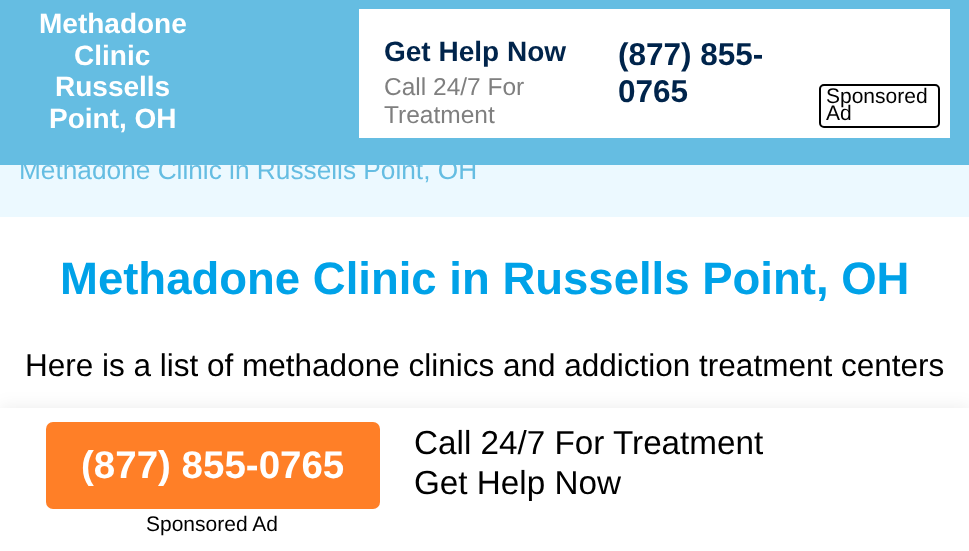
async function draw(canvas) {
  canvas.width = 969;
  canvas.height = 551;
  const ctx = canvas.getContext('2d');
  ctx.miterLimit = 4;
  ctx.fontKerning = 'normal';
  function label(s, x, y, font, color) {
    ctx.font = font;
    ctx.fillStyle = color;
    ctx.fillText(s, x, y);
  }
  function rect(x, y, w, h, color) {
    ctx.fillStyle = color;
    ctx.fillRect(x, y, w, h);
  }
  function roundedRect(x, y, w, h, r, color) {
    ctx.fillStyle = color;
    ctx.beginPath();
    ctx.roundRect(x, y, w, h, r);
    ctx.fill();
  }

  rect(0, 0, 969, 551, '#fff');
  rect(0, 0, 969, 165, '#65bde2');
  label('Methadone', 39, 33, 'bold 28px Liberation Sans', '#fff');
  label('Clinic', 74, 65, 'bold 28px Liberation Sans', '#fff');
  label('Russells', 55, 96, 'bold 28px Liberation Sans', '#fff');
  label('Point, OH', 49, 128, 'bold 28px Liberation Sans', '#fff');
  rect(359, 9, 591, 129, '#fff');
  label('Get Help Now', 384, 61, 'bold 28px Liberation Sans', '#00244b');
  label('Call 24/7 For', 384, 95, '24.5px Liberation Sans', '#7f7f7f');
  label('Treatment', 384, 123, '24.5px Liberation Sans', '#7f7f7f');
  label('(877) 855-', 618, 65, 'bold 31.5px Liberation Sans', '#00244b');
  label('0765', 618, 102, 'bold 31.5px Liberation Sans', '#00244b');
  ctx.beginPath();
  ctx.roundRect(820, 85, 119, 42, 4);
  ctx.strokeStyle = '#000';
  ctx.lineWidth = 2;
  ctx.stroke();
  label('Sponsored', 826, 103, '21px Liberation Sans', '#000');
  label('Ad', 826, 120, '21px Liberation Sans', '#000');
  rect(0, 165, 969, 52, '#ecf9ff');
  label('Methadone Clinic in Russells Point, OH', 19, 179, '26.25px Liberation Sans', '#65bde2');
  label('Methadone Clinic in Russells Point, OH', 60, 294, 'bold 45.5px Liberation Sans', '#00a2e8');
  label('Here is a list of methadone clinics and addiction treatment centers', 25, 376, '31.5px Liberation Sans', '#000');
  ctx.fillStyle = '#00000014';
  ctx.filter = 'blur(9px)';
  ctx.beginPath();
  ctx.rect(0, 408, 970, 143);
  ctx.fill();
  ctx.filter = 'none';
  rect(0, 408, 969, 143, '#fff');
  roundedRect(46, 422, 334, 87, 7, '#ff7f27');
  label('(877) 855-0765', 81, 478, 'bold 38.5px Liberation Sans', '#fff');
  label('Sponsored Ad', 146, 531, '21px Liberation Sans', '#000');
  label('Call 24/7 For Treatment', 414, 454, '33.25px Liberation Sans', '#000');
  label('Get Help Now', 414, 494, '33.25px Liberation Sans', '#000');
}

draw(document.querySelector('canvas'));
